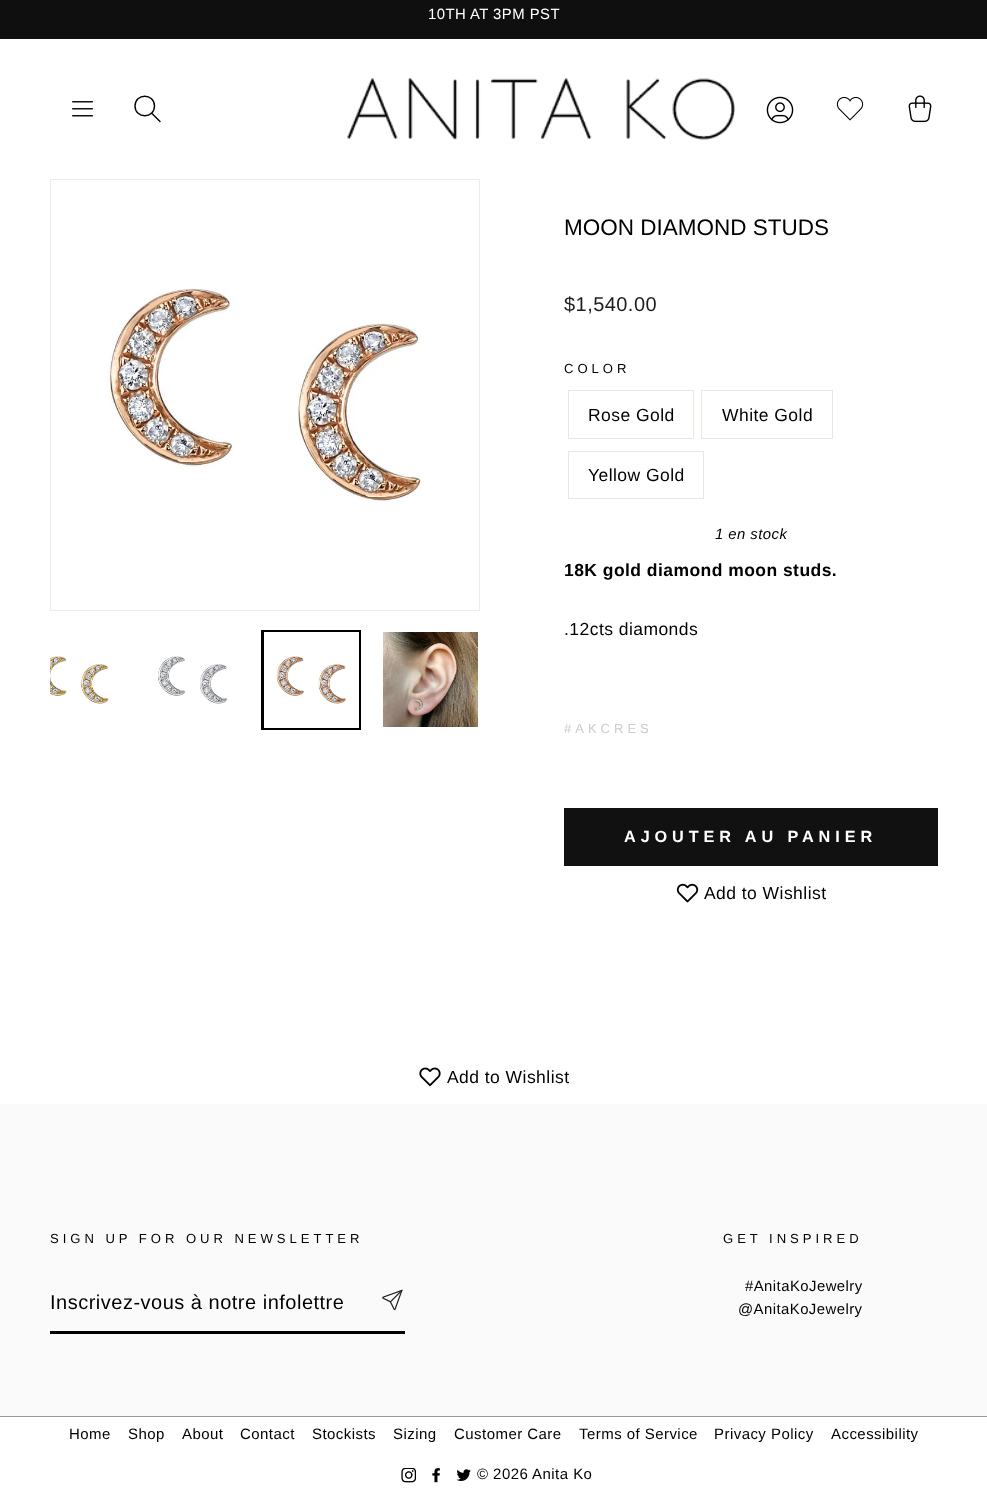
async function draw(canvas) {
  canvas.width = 987;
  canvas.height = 1489;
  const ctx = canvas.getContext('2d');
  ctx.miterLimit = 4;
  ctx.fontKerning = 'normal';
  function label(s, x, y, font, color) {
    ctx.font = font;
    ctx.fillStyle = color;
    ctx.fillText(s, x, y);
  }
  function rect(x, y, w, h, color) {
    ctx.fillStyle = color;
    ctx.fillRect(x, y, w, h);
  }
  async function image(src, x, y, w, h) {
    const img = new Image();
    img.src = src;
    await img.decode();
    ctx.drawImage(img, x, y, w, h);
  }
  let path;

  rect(0, 0, 987, 1489, '#fff');
  rect(0, 0, 987, 39, '#0f0f0f');
  ctx.letterSpacing = '0.45px';
  label('10TH AT 3PM PST', 428, 19, '14.9px Liberation Sans', '#fff');
  ctx.fillStyle = '#00000033';
  ctx.filter = 'blur(0.5px)';
  ctx.beginPath();
  ctx.rect(0, 39, 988, 140);
  ctx.fill();
  ctx.filter = 'none';
  rect(0, 39, 987, 140, '#fff');
  await image('assets/img1.png', 72, 101, 21, 16);
  path = new Path2D('M135 106C135 119 154.5 119 154.5 106C154.5 93 135 93 135 106ZM160 121.5L151.5 113');
  ctx.strokeStyle = '#000';
  ctx.lineWidth = 1.4;
  ctx.lineCap = 'round';
  ctx.stroke(path);
  await image('assets/img2.png', 347, 78, 388, 62);
  await image('assets/img3.png', 766, 96, 28, 28);
  await image('assets/img4.png', 836, 96, 28, 25);
  await image('assets/img5.png', 908, 95, 24, 28);
  ctx.strokeStyle = '#ececec';
  ctx.lineWidth = 1;
  ctx.strokeRect(50.5, 179.5, 429, 431);
  await image('assets/img6.png', 108, 288, 314, 215);
  await image('assets/img7.png', 50, 656, 59, 48);
  await image('assets/img8.png', 158, 656, 70, 48);
  ctx.strokeStyle = '#000';
  ctx.lineWidth = 3;
  ctx.strokeRect(262.5, 631.5, 97, 97);
  rect(264, 704, 95, 24, '#fff');
  await image('assets/img9.png', 264, 632, 95, 72);
  await image('assets/img10.png', 383, 632, 95, 95);
  ctx.letterSpacing = '0px';
  label('MOON DIAMOND STUDS', 564, 235, '22.5px Liberation Sans', '#000');
  ctx.letterSpacing = '0.45px';
  label('$1,540.00', 564, 311, '20px Liberation Sans', '#1c1d1d');
  ctx.letterSpacing = '3.95px';
  label('COLOR', 564, 373, '13.1px Liberation Sans', '#000');
  ctx.strokeStyle = '#e8e8e1';
  ctx.lineWidth = 1;
  ctx.strokeRect(568.5, 390.5, 125, 48);
  ctx.letterSpacing = '0.45px';
  label('Rose Gold', 588, 421, '17.5px Liberation Sans', '#000');
  ctx.strokeRect(701.5, 390.5, 131, 48);
  label('White Gold', 722, 421, '17.5px Liberation Sans', '#000');
  ctx.strokeRect(568.5, 451.5, 135, 47);
  label('Yellow Gold', 588, 481, '17.5px Liberation Sans', '#000');
  label('1 en stock', 715, 539, 'italic 14.9px Liberation Sans', '#000');
  label('18K gold diamond moon studs.', 564, 576, 'bold 17.5px Liberation Sans', '#000');
  label('.12cts diamonds', 564, 635, '17.5px Liberation Sans', '#000');
  ctx.letterSpacing = '3.95px';
  label('#AKCRES', 564, 733, '13.1px Liberation Sans', '#ccc');
  rect(564, 808, 374, 58, '#111');
  ctx.letterSpacing = '4.9px';
  label('AJOUTER AU PANIER', 624, 842, 'bold 16.25px Liberation Sans', '#fff');
  await image('assets/img11.png', 676, 883, 23, 20);
  ctx.letterSpacing = '0.45px';
  label('Add to Wishlist', 704, 899, '17.5px Liberation Sans', '#000');
  await image('assets/img12.png', 419, 1067, 22, 20);
  label('Add to Wishlist', 447, 1083, '17.5px Liberation Sans', '#000');
  rect(0, 1104, 987, 312, '#fafafa');
  ctx.letterSpacing = '3.95px';
  label('SIGN UP FOR OUR NEWSLETTER', 50, 1243, '13.1px Liberation Sans', '#000');
  rect(50, 1331, 355, 3, '#000');
  ctx.letterSpacing = '0.5px';
  label('Inscrivez-vous à notre infolettre', 50, 1309, '20px Liberation Sans', '#000');
  await image('assets/img13.png', 382, 1289, 21, 21);
  ctx.letterSpacing = '3.95px';
  label('GET INSPIRED', 723, 1243, '13.1px Liberation Sans', '#000');
  ctx.letterSpacing = '0.45px';
  label('#AnitaKoJewelry', 745, 1291, '14.9px Liberation Sans', '#000');
  label('@AnitaKoJewelry', 738, 1314, '14.9px Liberation Sans', '#000');
  rect(0, 1416, 987, 1, '#979797');
  label('Home', 69, 1439, '15px Liberation Sans', '#000');
  label('Shop', 128, 1439, '15px Liberation Sans', '#000');
  label('About', 182, 1439, '15px Liberation Sans', '#000');
  label('Contact', 240, 1439, '15px Liberation Sans', '#000');
  label('Stockists', 312, 1439, '15px Liberation Sans', '#000');
  label('Sizing', 393, 1439, '15px Liberation Sans', '#000');
  label('Customer Care', 454, 1439, '15px Liberation Sans', '#000');
  label('Terms of Service', 579, 1439, '15px Liberation Sans', '#000');
  label('Privacy Policy', 714, 1439, '15px Liberation Sans', '#000');
  label('Accessibility', 831, 1439, '15px Liberation Sans', '#000');
  await image('assets/img14.png', 401, 1468, 15, 15);
  await image('assets/img15.png', 432, 1468, 8, 15);
  await image('assets/img16.png', 456, 1469, 15, 12);
  label('© 2026 Anita Ko', 477, 1479, '15px Liberation Sans', '#000');
}

draw(document.querySelector('canvas'));
